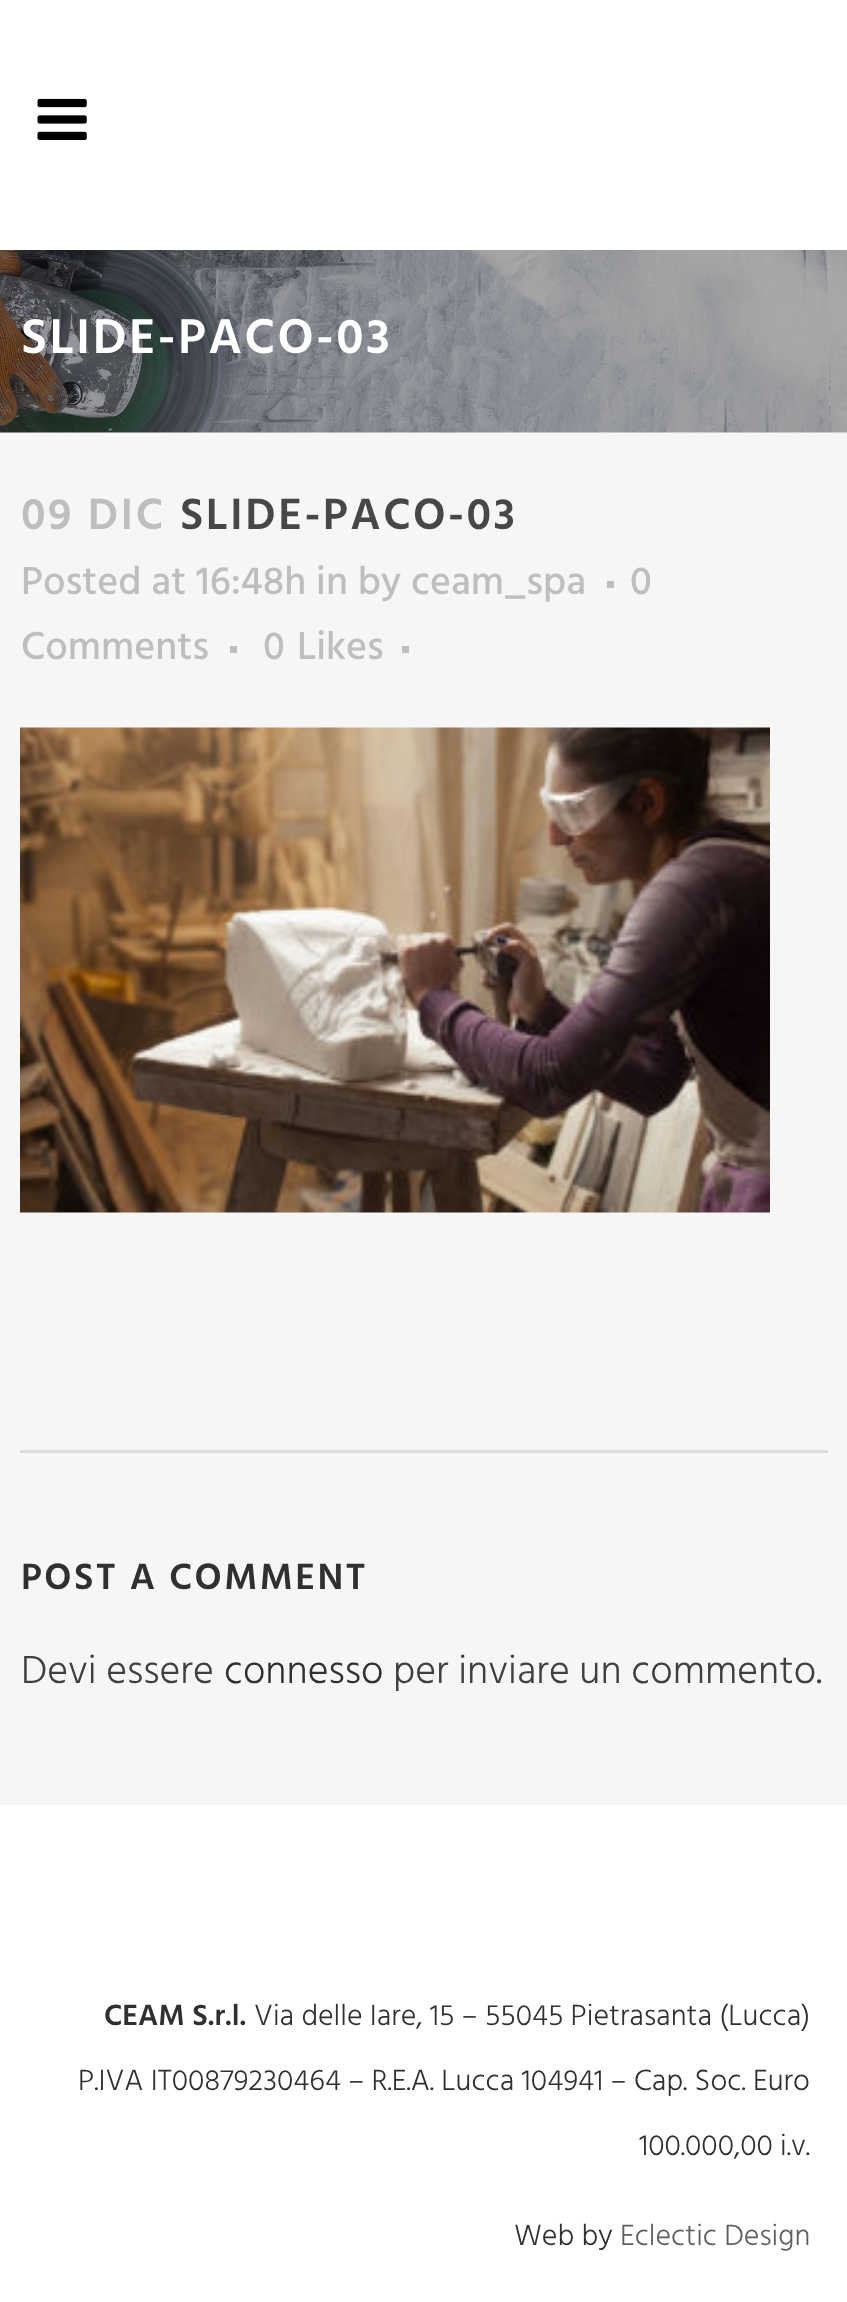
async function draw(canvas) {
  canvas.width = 847;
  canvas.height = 2302;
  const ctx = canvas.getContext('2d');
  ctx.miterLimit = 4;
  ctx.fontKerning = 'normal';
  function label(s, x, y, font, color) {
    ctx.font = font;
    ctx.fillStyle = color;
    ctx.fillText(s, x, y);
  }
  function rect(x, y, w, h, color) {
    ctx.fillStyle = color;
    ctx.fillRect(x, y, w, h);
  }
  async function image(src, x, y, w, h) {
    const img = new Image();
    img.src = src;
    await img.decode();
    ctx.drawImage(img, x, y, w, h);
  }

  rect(0, 0, 847, 2302, '#f6f6f6');
  rect(0, 0, 847, 250, '#fff');
  await image('assets/img1.png', 37, 98, 50, 42);
  await image('assets/img2.png', 0, 250, 847, 183);
  ctx.letterSpacing = '2.5px';
  label('SLIDE-PACO-03', 21, 353, '600 50px Hind', '#fff');
  label('09 DIC', 21, 529, '600 45px Hind', '#bebebe');
  label('SLIDE-PACO-03', 180, 529, '600 45px Hind', '#474747');
  ctx.letterSpacing = '0px';
  label('Posted at 16:48h in by ceam_spa', 21, 594, '500 40px Hind', '#bebebe');
  rect(607, 581, 7, 7, '#bebebe');
  label('0', 630, 594, '500 40px Hind', '#bebebe');
  label('Comments', 21, 659, '500 40px Hind', '#bebebe');
  rect(230, 646, 7, 7, '#bebebe');
  label('0', 263, 659, '500 40px Hind', '#bebebe');
  label('Likes', 297, 659, '500 40px Hind', '#bebebe');
  rect(402, 646, 7, 7, '#bebebe');
  await image('assets/img3.png', 20, 727, 750, 486);
  rect(20, 1450, 808, 3, '#ddd');
  ctx.letterSpacing = '2.5px';
  label('POST A COMMENT', 21, 1589, '600 37.5px Hind', '#303030');
  ctx.letterSpacing = '0px';
  label('Devi essere', 21, 1683, '300 40px Hind', '#3f3f3f');
  label('connesso', 224, 1683, '300 40px Hind', '#303030');
  label('per inviare un commento.', 393, 1683, '300 40px Hind', '#3f3f3f');
  rect(0, 1805, 847, 497, '#fff');
  label('CEAM S.r.l.', 104, 2025, '600 30px Hind', '#303030');
  label('Via delle Iare, 15 – 55045 Pietrasanta (Lucca)', 254, 2025, '300 30px Hind', '#303030');
  label('P.IVA IT00879230464 – R.E.A. Lucca 104941 – Cap. Soc. Euro', 78, 2090, '300 30px Hind', '#303030');
  label('100.000,00 i.v.', 639, 2155, '300 30px Hind', '#303030');
  label('Web by', 514, 2245, '300 30px Hind', '#303030');
  label('Eclectic Design', 620, 2245, '300 30px Hind', '#606060');
}

draw(document.querySelector('canvas'));
